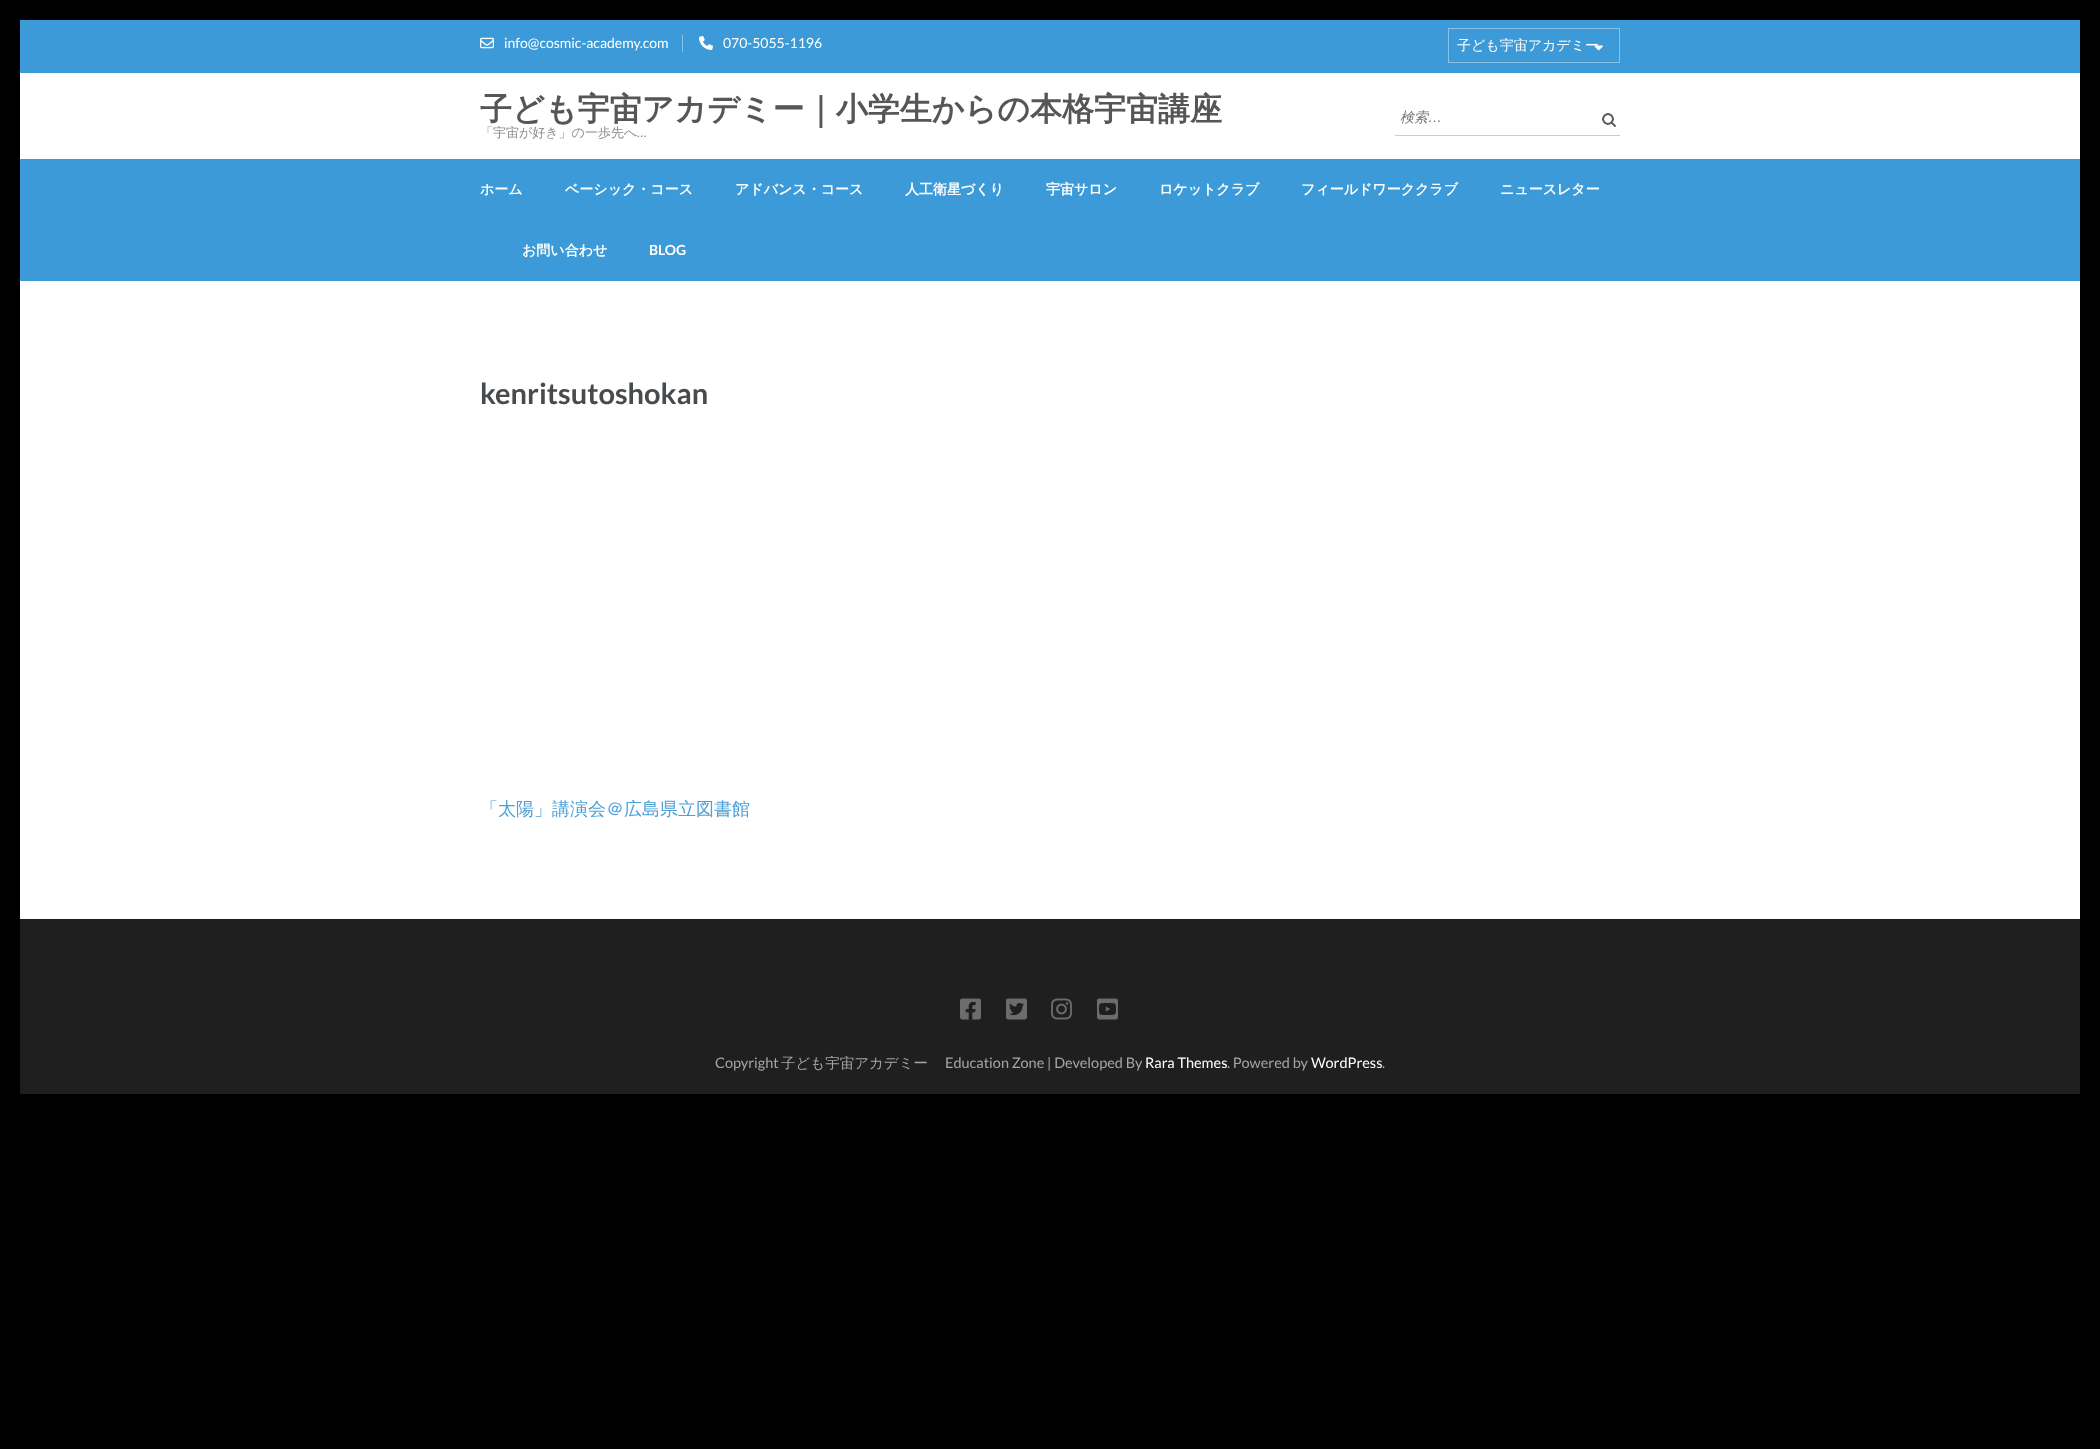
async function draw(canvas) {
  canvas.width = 2100;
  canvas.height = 1449;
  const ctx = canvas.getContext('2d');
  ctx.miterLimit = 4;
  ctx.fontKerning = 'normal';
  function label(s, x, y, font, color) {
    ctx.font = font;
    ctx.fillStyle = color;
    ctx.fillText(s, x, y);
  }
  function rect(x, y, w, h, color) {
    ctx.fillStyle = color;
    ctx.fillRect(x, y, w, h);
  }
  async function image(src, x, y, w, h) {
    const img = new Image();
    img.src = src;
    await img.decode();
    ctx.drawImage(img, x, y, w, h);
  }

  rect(0, 0, 2100, 1449, '#000');
  rect(20, 73, 2060, 846, '#fff');
  rect(20, 20, 2060, 53, '#3b9ad7');
  await image('assets/img1.png', 480, 37, 14, 12);
  label('info@cosmic-academy.com', 504, 48, '14px Lato', '#fff');
  rect(682, 35, 1, 17, '#89c2e7');
  await image('assets/img2.png', 699, 36, 14, 14);
  label('070-5055-1196', 723, 48, '14px Lato', '#fff');
  ctx.strokeStyle = '#89c2e7';
  ctx.strokeRect(1448.5, 28.5, 171, 34);
  label('子ども宇宙アカデミー', 1457, 50, '500 14px WenQuanYi Zen Hei', '#fff');
  await image('assets/img3.png', 1594, 45, 9, 6);
  label('子ども宇宙アカデミー｜小学生からの本格宇宙講座', 480, 120, 'bold 32px WenQuanYi Zen Hei', '#555658');
  label('「宇宙が好き」の一歩先へ', 480, 137, '500 13px WenQuanYi Zen Hei', '#8c8c8c');
  label('…', 637, 137, '13px Lato', '#8c8c8c');
  rect(1395, 135, 225, 1, '#ccc');
  label('検索', 1400, 122, 'italic 500 14px WenQuanYi Zen Hei', '#757575');
  label('…', 1428, 122, 'italic 14px Liberation Sans', '#757575');
  await image('assets/img4.png', 1602, 113, 14, 14);
  rect(20, 159, 2060, 122, '#3b9ad7');
  label('ホーム', 480, 194, 'bold 14px WenQuanYi Zen Hei', '#fff');
  label('ベーシック・コース', 565, 194, 'bold 14px WenQuanYi Zen Hei', '#fff');
  label('アドバンス・コース', 735, 194, 'bold 14px WenQuanYi Zen Hei', '#fff');
  label('人工衛星づくり', 905, 194, 'bold 14px WenQuanYi Zen Hei', '#fff');
  label('宇宙サロン', 1046, 194, 'bold 14px WenQuanYi Zen Hei', '#fff');
  label('ロケットクラブ', 1159, 194, 'bold 14px WenQuanYi Zen Hei', '#fff');
  label('フィールドワーククラブ', 1301, 194, 'bold 14px WenQuanYi Zen Hei', '#fff');
  label('ニュースレター', 1500, 194, 'bold 14px WenQuanYi Zen Hei', '#fff');
  label('お問い合わせ', 522, 255, 'bold 14px WenQuanYi Zen Hei', '#fff');
  label('BLOG', 649, 255, 'bold 14px Lato', '#fff');
  label('kenritsutoshokan', 480, 404, 'bold 29px Lato', '#474b4e');
  label('「太陽」講演会＠広島県立図書館', 480, 815, '500 18px WenQuanYi Zen Hei', '#4aa0d7');
  rect(20, 919, 2060, 175, '#1f1f1f');
  await image('assets/img5.png', 960, 998, 21, 22);
  await image('assets/img6.png', 1006, 998, 21, 22);
  await image('assets/img7.png', 1051, 998, 21, 22);
  await image('assets/img8.png', 1097, 998, 21, 22);
  label('Copyright', 715, 1068, '14.5px Lato', '#a6a6a6');
  label('子ども宇宙アカデミー', 781, 1068, '500 14.5px WenQuanYi Zen Hei', '#a6a6a6');
  label('Education Zone | Developed By', 945, 1068, '14.5px Lato', '#a6a6a6');
  label('Rara Themes', 1145, 1068, '14.5px Lato', '#fff');
  label('. Powered by', 1227, 1068, '14.5px Lato', '#a6a6a6');
  label('WordPress', 1311, 1068, '14.5px Lato', '#fff');
  label('.', 1382, 1068, '14.5px Lato', '#a6a6a6');
}

draw(document.querySelector('canvas'));
